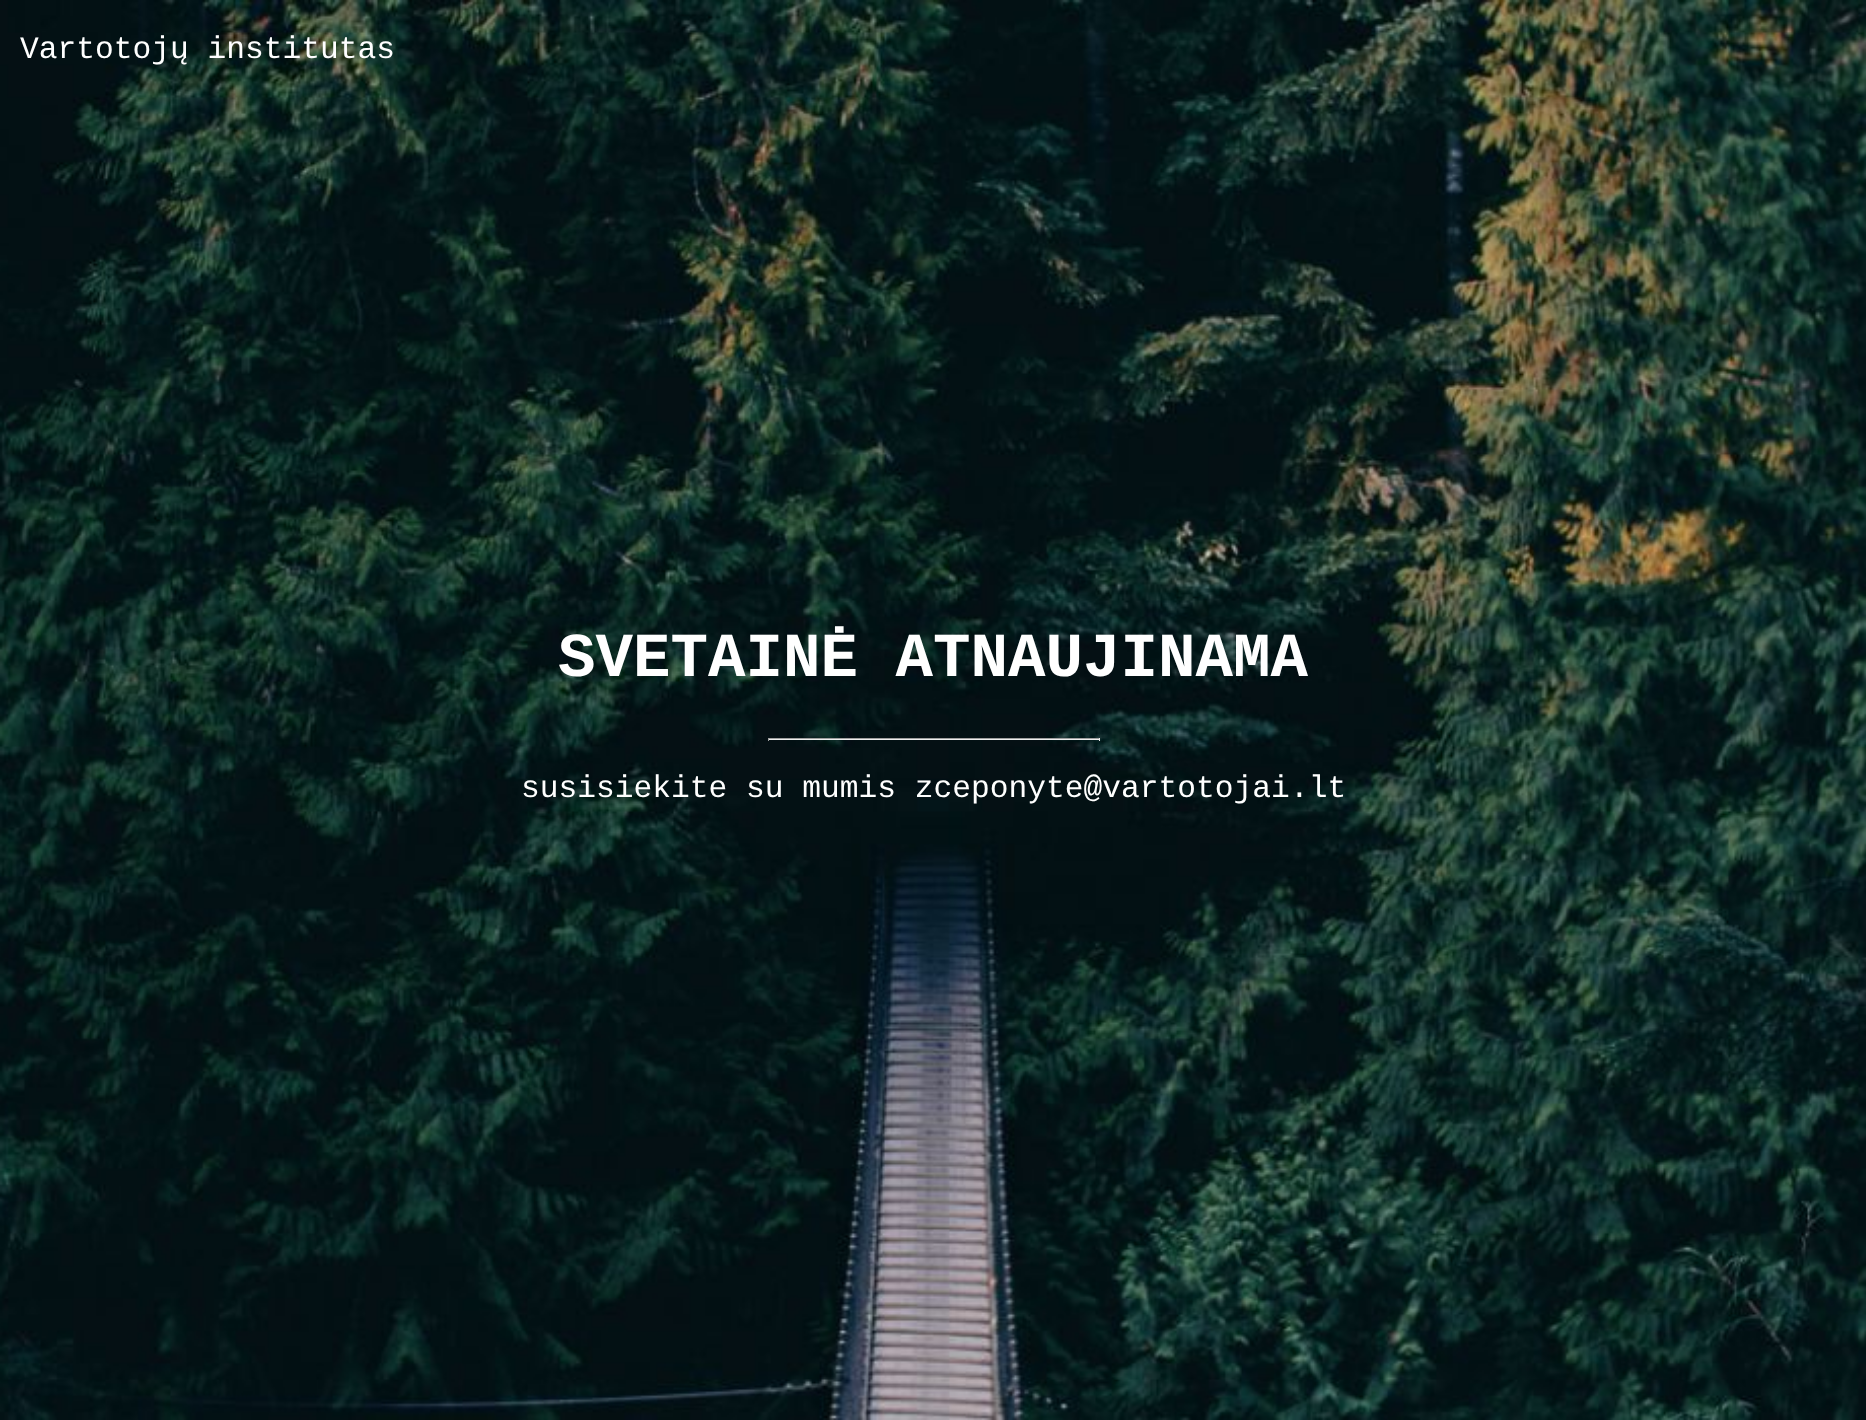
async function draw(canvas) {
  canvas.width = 1866;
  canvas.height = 1420;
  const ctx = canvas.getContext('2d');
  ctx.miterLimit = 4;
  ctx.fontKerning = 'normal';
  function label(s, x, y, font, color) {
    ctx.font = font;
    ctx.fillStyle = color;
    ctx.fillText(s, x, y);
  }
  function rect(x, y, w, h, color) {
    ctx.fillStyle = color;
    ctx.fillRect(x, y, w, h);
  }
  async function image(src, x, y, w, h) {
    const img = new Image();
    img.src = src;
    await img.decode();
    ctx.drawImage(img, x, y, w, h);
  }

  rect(0, 0, 1866, 1420, '#fff');
  await image('assets/img1.png', 0, 0, 1866, 1420);
  label('Vartotojų institutas', 20, 58, '31.25px Liberation Mono', '#fff');
  label('SVETAINĖ ATNAUJINAMA', 558, 676, 'bold 62.5px Liberation Mono', '#fff');
  rect(768, 738, 332, 1, '#9f9f9f');
  rect(1099, 738, 1, 3, '#eee');
  rect(768, 739, 332, 1, '#eee');
  rect(768, 738, 1, 3, '#9f9f9f');
  label('susisiekite su mumis zceponyte@vartotojai.lt', 521, 797, '31.25px Liberation Mono', '#fff');
}

draw(document.querySelector('canvas'));
